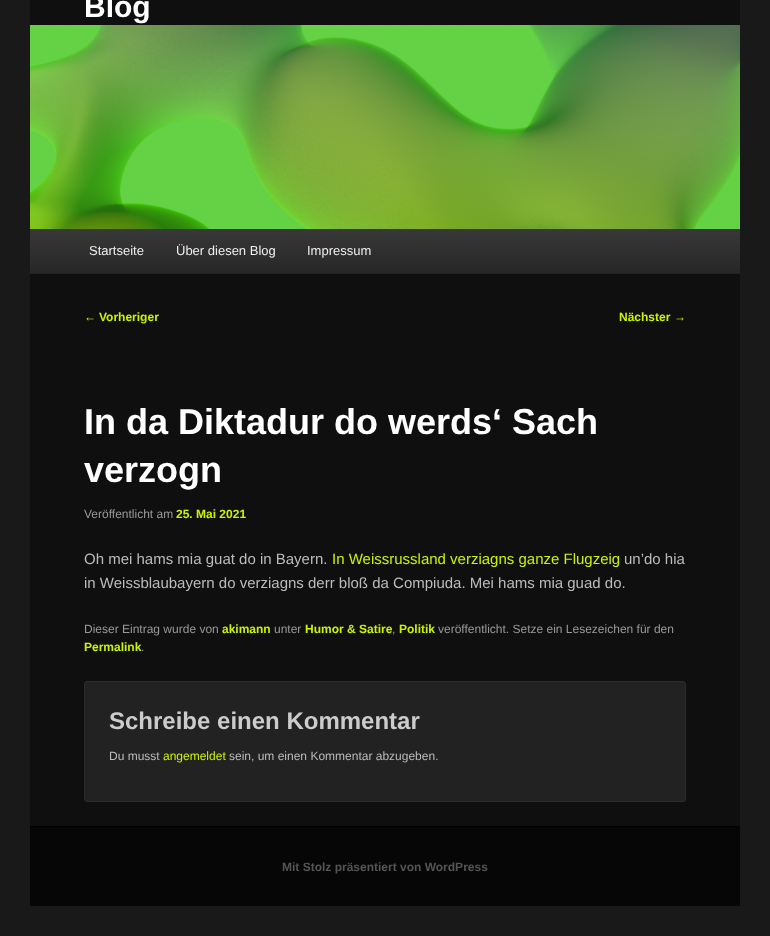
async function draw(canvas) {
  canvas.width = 770;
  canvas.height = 936;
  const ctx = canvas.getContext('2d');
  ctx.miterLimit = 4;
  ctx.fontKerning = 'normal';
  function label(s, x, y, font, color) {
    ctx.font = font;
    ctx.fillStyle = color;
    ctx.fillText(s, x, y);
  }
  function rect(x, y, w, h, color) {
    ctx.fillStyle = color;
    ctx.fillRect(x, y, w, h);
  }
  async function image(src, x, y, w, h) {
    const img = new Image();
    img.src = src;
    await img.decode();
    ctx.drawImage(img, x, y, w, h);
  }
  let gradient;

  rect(0, 0, 770, 936, '#191919');
  rect(30, 0, 710, 826, '#0f0f0f');
  label('Blog', 84, 17, 'bold 30px Liberation Sans', '#fff');
  await image('assets/img1.png', 30, 25, 710, 204);
  gradient = ctx.createLinearGradient(385, 229, 385, 273);
  gradient.addColorStop(0, '#383838');
  gradient.addColorStop(1, '#272727');
  ctx.fillStyle = gradient;
  ctx.fillRect(30, 229, 710, 44);
  rect(30, 273, 710, 1, '#222');
  label('Startseite', 89, 255, '13px Liberation Sans', '#eee');
  label('Über diesen Blog', 176, 255, '13px Liberation Sans', '#eee');
  label('Impressum', 307, 255, '13px Liberation Sans', '#eee');
  label('←', 84, 321, '12px Liberation Sans', '#cbf300');
  label('Vorheriger', 99, 321, 'bold 12px Liberation Sans', '#cbf300');
  label('Nächster', 619, 321, 'bold 12px Liberation Sans', '#cbf300');
  label('→', 674, 321, '12px Liberation Sans', '#cbf300');
  label('In da Diktadur do werds‘ Sach', 84, 434, 'bold 36px Liberation Sans', '#fff');
  label('verzogn', 84, 482, 'bold 36px Liberation Sans', '#fff');
  label('Veröffentlicht am', 84, 518, '12px Liberation Sans', '#999');
  label('25. Mai 2021', 176, 518, 'bold 12px Liberation Sans', '#cbf300');
  label('Oh mei hams mia guat do in Bayern.', 84, 564, '15px Liberation Sans', '#bbb');
  label('In Weissrussland verziagns ganze Flugzeig', 332, 564, '15px Liberation Sans', '#cbf300');
  label('un’do hia', 624, 564, '15px Liberation Sans', '#bbb');
  label('in Weissblaubayern do verziagns derr bloß da Compiuda. Mei hams mia guad do.', 84, 588, '15px Liberation Sans', '#bbb');
  label('Dieser Eintrag wurde von', 84, 633, '12px Liberation Sans', '#999');
  label('akimann', 222, 633, 'bold 12px Liberation Sans', '#cbf300');
  label('unter', 274, 633, '12px Liberation Sans', '#999');
  label('Humor & Satire', 305, 633, 'bold 12px Liberation Sans', '#cbf300');
  label(',', 392, 633, '12px Liberation Sans', '#999');
  label('Politik', 399, 633, 'bold 12px Liberation Sans', '#cbf300');
  label('veröffentlicht. Setze ein Lesezeichen für den', 438, 633, '12px Liberation Sans', '#999');
  label('Permalink', 84, 651, 'bold 12px Liberation Sans', '#cbf300');
  label('.', 141, 651, '12px Liberation Sans', '#999');
  ctx.fillStyle = '#222';
  ctx.beginPath();
  ctx.roundRect(84.5, 681.5, 601, 120, 2.5);
  ctx.fill();
  ctx.strokeStyle = '#2c2c2c';
  ctx.stroke();
  label('Schreibe einen Kommentar', 109, 729, 'bold 24px Liberation Sans', '#ccc');
  label('Du musst', 109, 760, '12px Liberation Sans', '#bbb');
  label('angemeldet', 163, 760, '12px Liberation Sans', '#cbf300');
  label('sein, um einen Kommentar abzugeben.', 229, 760, '12px Liberation Sans', '#bbb');
  rect(30, 827, 710, 79, '#060606');
  rect(30, 826, 710, 1, '#000');
  label('Mit Stolz präsentiert von WordPress', 282, 871, 'bold 12px Liberation Sans', '#555');
}

draw(document.querySelector('canvas'));
